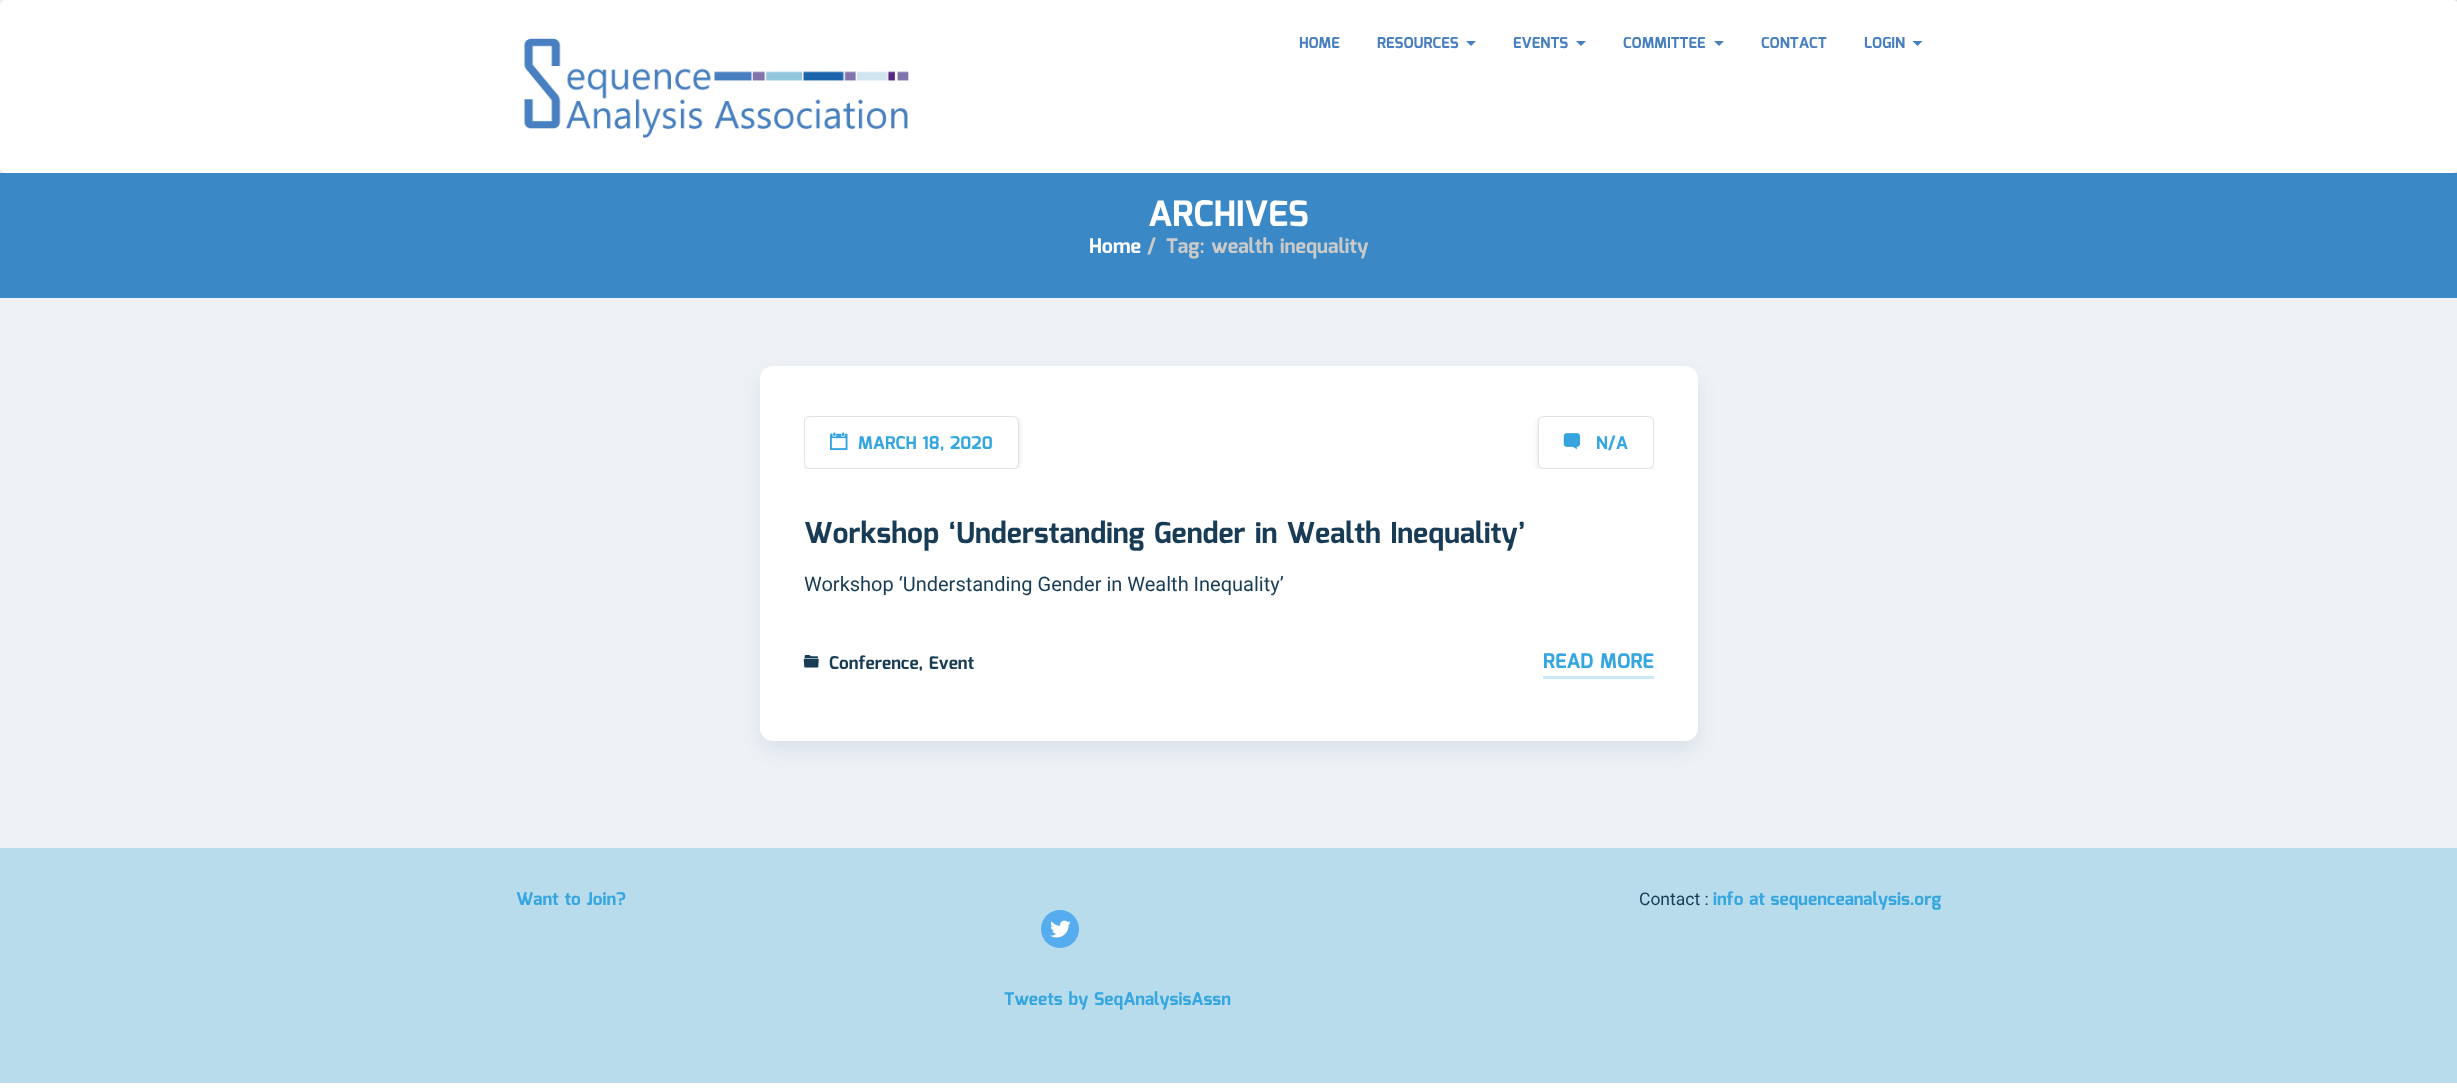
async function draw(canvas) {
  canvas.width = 2457;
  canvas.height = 1088;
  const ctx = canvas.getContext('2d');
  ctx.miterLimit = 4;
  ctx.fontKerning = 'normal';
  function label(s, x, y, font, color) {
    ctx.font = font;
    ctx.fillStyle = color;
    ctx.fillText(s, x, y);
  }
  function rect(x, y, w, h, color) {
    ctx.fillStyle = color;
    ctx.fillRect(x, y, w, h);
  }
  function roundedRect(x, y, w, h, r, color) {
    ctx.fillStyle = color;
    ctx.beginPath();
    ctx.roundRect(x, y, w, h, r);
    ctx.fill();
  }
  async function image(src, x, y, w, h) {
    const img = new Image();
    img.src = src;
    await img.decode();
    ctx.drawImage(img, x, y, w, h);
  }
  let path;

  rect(0, 0, 2457, 1088, '#fff');
  ctx.fillStyle = '#0000004d';
  ctx.filter = 'blur(3px)';
  ctx.beginPath();
  ctx.roundRect(1, 0, 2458, 173, 5);
  ctx.fill();
  ctx.filter = 'none';
  roundedRect(0, 0, 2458, 173, 5, '#fff');
  await image('assets/img1.png', 524, 38, 385, 100);
  label('HOME', 1299, 48, 'bold 15px Mina', '#477fc0');
  label('RESOURCES', 1377, 48, 'bold 15px Mina', '#477fc0');
  path = new Path2D('M1466 41H1476L1471 46Z');
  ctx.fill(path);
  label('EVENTS', 1513, 48, 'bold 15px Mina', '#477fc0');
  path = new Path2D('M1576 41H1586L1581 46Z');
  ctx.fill(path);
  label('COMMITTEE', 1623, 48, 'bold 15px Mina', '#477fc0');
  path = new Path2D('M1714 41H1724L1719 46Z');
  ctx.fill(path);
  label('CONTACT', 1761, 48, 'bold 15px Mina', '#477fc0');
  label('LOGIN', 1864, 48, 'bold 15px Mina', '#477fc0');
  path = new Path2D('M1912.5 41H1922.5L1917.5 46Z');
  ctx.fill(path);
  rect(0, 173, 2457, 125, '#3a89c6');
  label('ARCHIVES', 1148, 226, 'bold 35px Mina', '#fff');
  label('Home', 1089, 253, 'bold 20px Mina', '#fff');
  label('/', 1147, 253, 'bold 20px Mina', '#cacaca');
  label('Tag: wealth inequality', 1166, 253, 'bold 20px Mina', '#cacaca');
  rect(0, 298, 2457, 550, '#eef2f5');
  ctx.fillStyle = '#00388117';
  ctx.filter = 'blur(9.5px)';
  ctx.beginPath();
  ctx.roundRect(760, 375, 938, 375, 13);
  ctx.fill();
  ctx.filter = 'none';
  roundedRect(760, 366, 938, 375, 13, '#fff');
  ctx.save();
  ctx.beginPath();
  ctx.rect(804, 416, 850, 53);
  ctx.clip();
  ctx.fillStyle = '#0000001c';
  ctx.filter = 'blur(3px)';
  ctx.beginPath();
  ctx.roundRect(804, 418, 215, 52, 6);
  ctx.fill();
  ctx.filter = 'none';
  ctx.restore();
  ctx.beginPath();
  ctx.roundRect(804.5, 416.5, 214, 52, 5.5);
  ctx.fill();
  ctx.strokeStyle = '#e3e3e3';
  ctx.stroke();
  await image('assets/img2.png', 830, 432, 18, 18);
  label('MARCH 18, 2020', 858, 449, 'bold 17.5px Mina', '#35a6e0');
  ctx.save();
  ctx.beginPath();
  ctx.rect(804, 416, 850, 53);
  ctx.clip();
  ctx.fillStyle = '#0000001c';
  ctx.filter = 'blur(3px)';
  ctx.beginPath();
  ctx.roundRect(1538, 418, 116, 52, 6);
  ctx.fill();
  ctx.filter = 'none';
  ctx.restore();
  ctx.fillStyle = '#fff';
  ctx.beginPath();
  ctx.roundRect(1538.5, 416.5, 115, 52, 5.5);
  ctx.fill();
  ctx.stroke();
  await image('assets/img3.png', 1563, 433, 17, 17);
  label('N/A', 1596, 449, 'bold 17.5px Mina', '#35a6e0');
  label('Workshop ‘Understanding Gender in Wealth Inequality’', 804, 543, 'bold 28.75px Mina', '#183c55');
  label('Workshop ‘Understanding Gender in Wealth Inequality’', 804, 591, '20px Roboto', '#183c55');
  await image('assets/img4.png', 803, 655, 16, 13);
  label('Conference, Event', 829, 669, 'bold 17.5px Mina', '#183c55');
  rect(1543, 676, 111, 3, '#cce9f7');
  label('READ MORE', 1543, 668, 'bold 20px Mina', '#35a6e0');
  rect(0, 848, 2457, 235, '#b8dcec');
  label('Want to Join?', 516, 905, 'bold 17.5px Mina', '#35a6e0');
  label('Contact :', 1639, 905, '17.5px Roboto', '#183c55');
  label('info at sequenceanalysis.org', 1713, 905, 'bold 17.5px Mina', '#35a6e0');
  ctx.fillStyle = '#55acee';
  ctx.beginPath();
  ctx.arc(1060, 929, 19, 0, 2 * Math.PI);
  ctx.fill();
  await image('assets/img5.png', 1050, 920, 21, 18);
  label('Tweets by SeqAnalysisAssn', 1004, 1005, 'bold 17.5px Mina', '#35a6e0');
}

draw(document.querySelector('canvas'));
